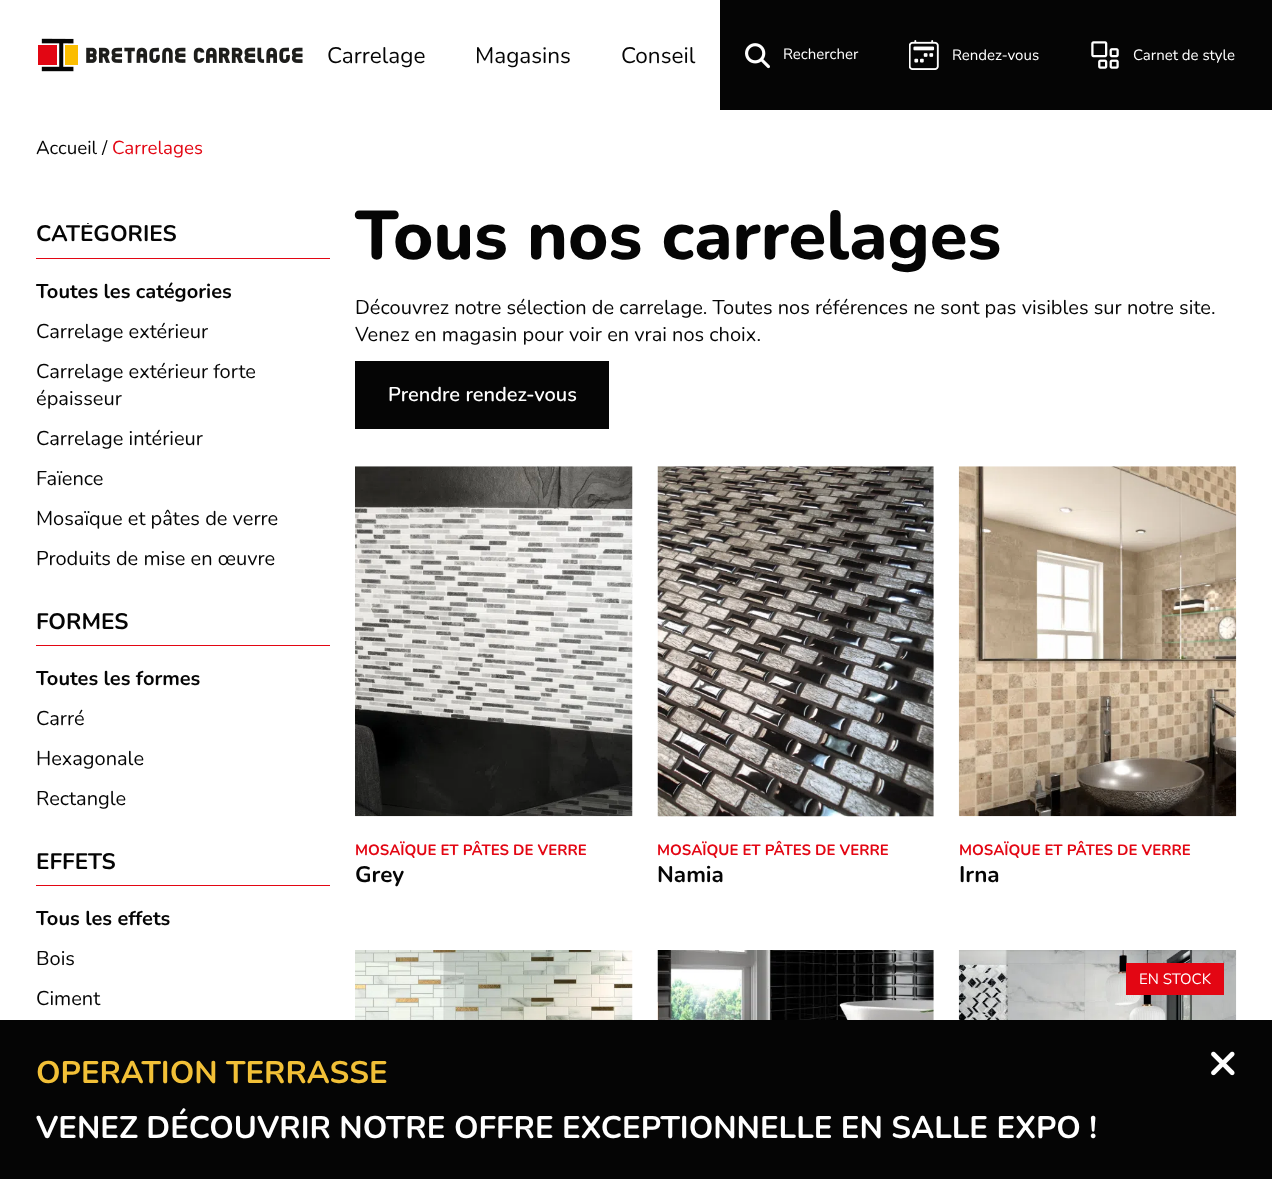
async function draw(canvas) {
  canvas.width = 1272;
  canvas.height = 1179;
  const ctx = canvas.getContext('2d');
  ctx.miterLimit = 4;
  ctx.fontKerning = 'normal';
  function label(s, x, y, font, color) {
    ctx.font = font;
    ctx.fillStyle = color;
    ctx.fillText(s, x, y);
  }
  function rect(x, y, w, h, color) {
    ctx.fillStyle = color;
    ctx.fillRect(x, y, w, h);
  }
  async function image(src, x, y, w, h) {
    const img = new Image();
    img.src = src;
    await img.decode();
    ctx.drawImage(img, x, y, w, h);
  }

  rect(0, 0, 1272, 1179, '#fff');
  await image('assets/img1.png', 38, 38, 265, 34);
  label('Carrelage', 327, 63, '22.5px Nunito', '#050505');
  label('Magasins', 475, 63, '22.5px Nunito', '#050505');
  label('Conseil', 621, 63, '22.5px Nunito', '#050505');
  rect(720, 0, 552, 110, '#050505');
  await image('assets/img2.png', 745, 43, 25, 26);
  label('Rechercher', 783, 59, '15px Nunito', '#fff');
  await image('assets/img3.png', 909, 40, 30, 30);
  label('Rendez-vous', 952, 60, '15px Nunito', '#fff');
  await image('assets/img4.png', 1091, 41, 28, 28);
  label('Carnet de style', 1133, 60, '15px Nunito', '#fff');
  rect(0, 1020, 1272, 159, '#050505');
  label('OPERATION TERRASSE', 36, 1083, 'bold 31.25px Nunito', '#f2c037');
  await image('assets/img5.png', 1211, 1051, 24, 25);
  label('VENEZ DÉCOUVRIR NOTRE OFFRE EXCEPTIONNELLE EN SALLE EXPO !', 36, 1138, 'bold 31.25px Nunito', '#fff');
  label('Accueil /', 36, 154, '18.75px Nunito', '#050505');
  label('Carrelages', 112, 154, '18.75px Nunito', '#e30613');
  ctx.save();
  ctx.beginPath();
  ctx.rect(36, 223, 294, 350);
  ctx.clip();
  label('CATÉGORIES', 36, 241, 'bold 22.5px Nunito', '#050505');
  ctx.restore();
  rect(36, 258, 294, 1, '#e30613');
  label('Toutes les catégories', 36, 298, 'bold 20px Nunito', '#050505');
  label('Carrelage extérieur', 36, 338, '20px Nunito', '#050505');
  label('Carrelage extérieur forte', 36, 378, '20px Nunito', '#050505');
  label('épaisseur', 36, 405, '20px Nunito', '#050505');
  label('Carrelage intérieur', 36, 445, '20px Nunito', '#050505');
  label('Faïence', 36, 485, '20px Nunito', '#050505');
  label('Mosaïque et pâtes de verre', 36, 525, '20px Nunito', '#050505');
  label('Produits de mise en œuvre', 36, 565, '20px Nunito', '#050505');
  label('FORMES', 36, 629, 'bold 22.5px Nunito', '#050505');
  rect(36, 645, 294, 1, '#e30613');
  label('Toutes les formes', 36, 685, 'bold 20px Nunito', '#050505');
  label('Carré', 36, 725, '20px Nunito', '#050505');
  label('Hexagonale', 36, 765, '20px Nunito', '#050505');
  label('Rectangle', 36, 805, '20px Nunito', '#050505');
  label('EFFETS', 36, 869, 'bold 22.5px Nunito', '#050505');
  rect(36, 885, 294, 1, '#e30613');
  label('Tous les effets', 36, 925, 'bold 20px Nunito', '#050505');
  label('Bois', 36, 965, '20px Nunito', '#050505');
  label('Ciment', 36, 1005, '20px Nunito', '#050505');
  label('Tous nos carrelages', 355, 259, '800 68.75px Nunito', '#050505');
  label('Découvrez notre sélection de carrelage. Toutes nos références ne sont pas visibles sur notre site.', 355, 314, '20px Nunito', '#050505');
  label('Venez en magasin pour voir en vrai nos choix.', 355, 341, '20px Nunito', '#050505');
  rect(355, 361, 254, 68, '#050505');
  label('Prendre rendez-vous', 388, 401, '600 20px Nunito', '#fff');
  await image('assets/img6.png', 355, 466, 278, 351);
  label('MOSAÏQUE ET PÂTES DE VERRE', 355, 855, 'bold 15px Nunito', '#e30613');
  label('Grey', 355, 882, 'bold 22.5px Nunito', '#050505');
  await image('assets/img7.png', 657, 466, 277, 351);
  label('MOSAÏQUE ET PÂTES DE VERRE', 657, 855, 'bold 15px Nunito', '#e30613');
  label('Namia', 657, 882, 'bold 22.5px Nunito', '#050505');
  await image('assets/img8.png', 958, 466, 279, 351);
  label('MOSAÏQUE ET PÂTES DE VERRE', 959, 855, 'bold 15px Nunito', '#e30613');
  label('Irna', 959, 882, 'bold 22.5px Nunito', '#050505');
  await image('assets/img9.png', 355, 950, 278, 70);
  await image('assets/img10.png', 657, 950, 277, 70);
  await image('assets/img11.png', 958, 950, 279, 70);
  rect(1126, 963, 98, 32, '#e30613');
  label('EN STOCK', 1139, 984, '15px Nunito', '#fff');
}

draw(document.querySelector('canvas'));
